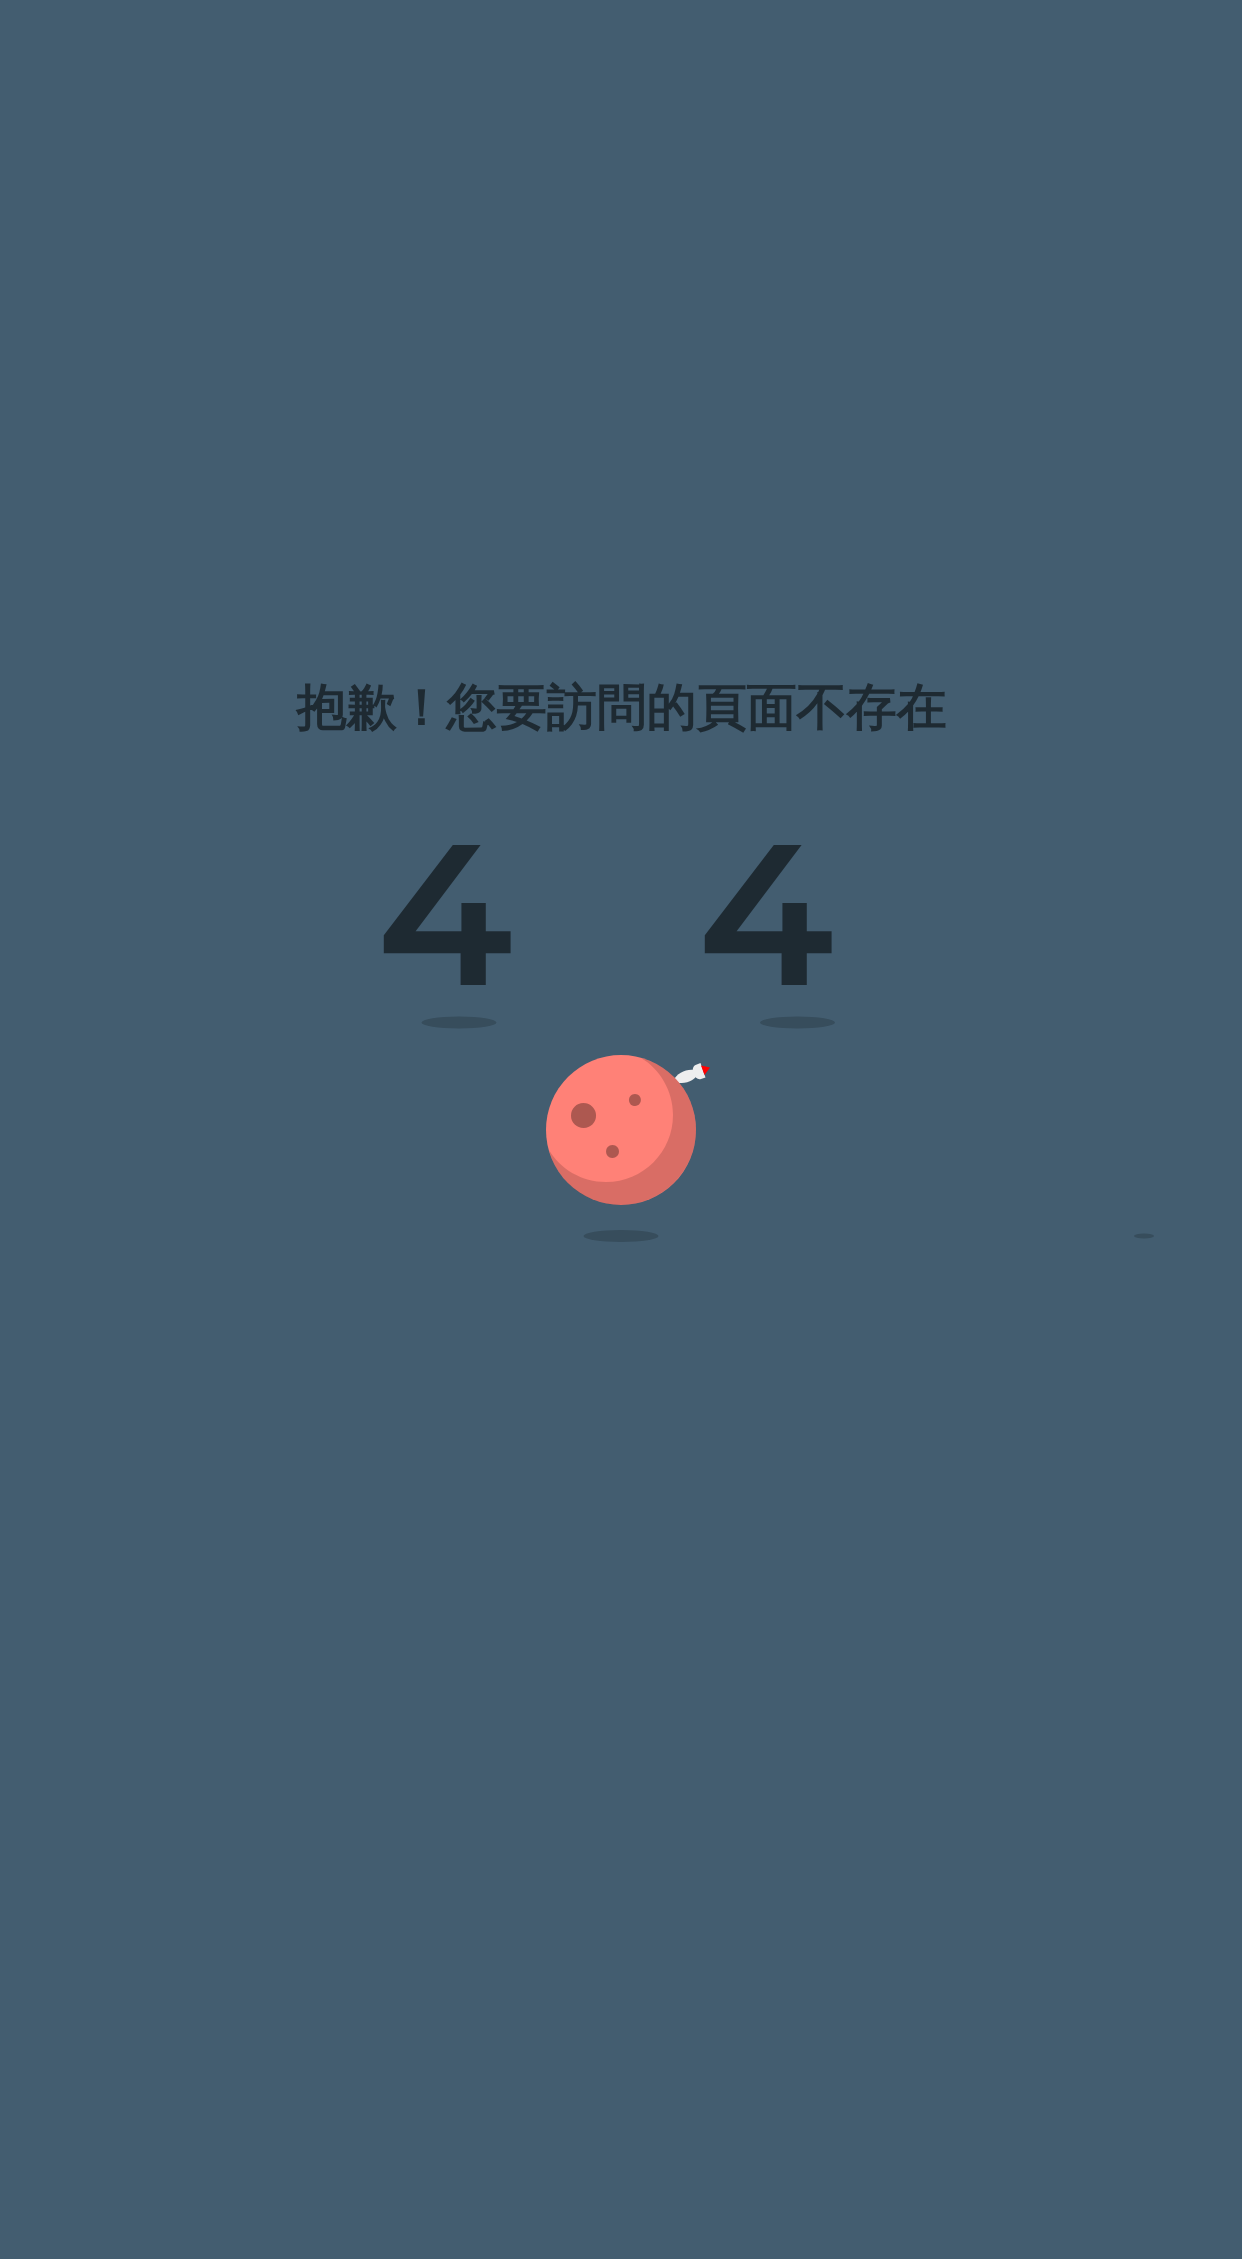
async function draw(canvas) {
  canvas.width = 1242;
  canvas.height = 2259;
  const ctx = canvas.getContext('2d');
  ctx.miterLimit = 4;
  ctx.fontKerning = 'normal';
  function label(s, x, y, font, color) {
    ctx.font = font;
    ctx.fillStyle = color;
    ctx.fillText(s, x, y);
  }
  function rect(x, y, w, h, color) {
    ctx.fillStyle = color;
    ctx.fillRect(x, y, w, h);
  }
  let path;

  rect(0, 0, 1242, 2259, '#435d70');
  label('抱歉！您要訪問的頁面不存在', 296, 725, 'bold 50px WenQuanYi Zen Hei', '#1e2a32');
  label('4', 377, 985, '600 200px Montserrat', '#1e2a32');
  ctx.fillStyle = '#374d5c';
  ctx.beginPath();
  ctx.ellipse(459, 1022.5, 37.5, 6, 0, 0, 2 * Math.PI);
  ctx.fill();
  label('4', 698, 985, '600 200px Montserrat', '#1e2a32');
  ctx.fillStyle = '#374d5c';
  ctx.beginPath();
  ctx.ellipse(797.5, 1022.5, 37.5, 6, 0, 0, 2 * Math.PI);
  ctx.fill();
  ctx.fillStyle = '#eee';
  path = new Path2D('M673 1081C678 1071 690 1067 700 1071.5C695 1081.5 683 1086 673 1081Z');
  ctx.fill(path);
  path = new Path2D('M693.5 1073.5C692 1070 693 1066 695.5 1065L700.5 1063L705.5 1077.5L701 1079C698 1080 695 1077.5 693.5 1073.5Z');
  ctx.fill(path);
  ctx.fillStyle = '#f00';
  path = new Path2D('M704.5 1075L701 1065.5L710 1067.5Z');
  ctx.fill(path);
  ctx.save();
  ctx.beginPath();
  ctx.roundRect(546, 1055, 150, 150, 75);
  ctx.clip();
  ctx.fillStyle = '#ff8177';
  ctx.beginPath();
  ctx.arc(606, 1115, 105, 0, 2 * Math.PI);
  ctx.fill();
  ctx.restore();
  ctx.fillStyle = '#00000026';
  path = new Path2D('M549 1150C557 1181 586 1205 621 1205C662 1205 696 1171 696 1130C696 1095 672 1066 641 1058C660 1069 673 1091 673 1115C673 1152 643 1182 606 1182C582 1182 560 1169 549 1150Z');
  ctx.fill(path);
  ctx.fillStyle = '#d96e65';
  ctx.beginPath();
  ctx.arc(635, 1100, 6, 0, 2 * Math.PI);
  ctx.fill();
  ctx.fillStyle = '#00000033';
  path = new Path2D('M635 1094C626.5 1094 627.5 1106.5 635 1106C643 1105.5 642.5 1094 635 1094Z');
  ctx.fill(path);
  ctx.fillStyle = '#d96e65';
  ctx.beginPath();
  ctx.arc(583.5, 1115.5, 12.5, 0, 2 * Math.PI);
  ctx.fill();
  ctx.fillStyle = '#00000033';
  path = new Path2D('M583.5 1103C576.5 1103 571 1108.5 571 1115.5C570.5 1126.5 584.5 1132 592.5 1124.5C600.5 1116.5 594.5 1103 583.5 1103Z');
  ctx.fill(path);
  ctx.fillStyle = '#d96e65';
  ctx.beginPath();
  ctx.arc(612.5, 1151.5, 6.5, 0, 2 * Math.PI);
  ctx.fill();
  ctx.fillStyle = '#00000033';
  path = new Path2D('M612.5 1145C603.5 1145 604.5 1158.5 612.5 1158C621.5 1157.5 621 1145 612.5 1145Z');
  ctx.fill(path);
  ctx.fillStyle = '#374d5c';
  ctx.beginPath();
  ctx.ellipse(621, 1236, 37.5, 6, 0, 0, 2 * Math.PI);
  ctx.fill();
  ctx.beginPath();
  ctx.ellipse(1144, 1236, 10, 2.5, 0, 0, 2 * Math.PI);
  ctx.fill();
}

draw(document.querySelector('canvas'));
